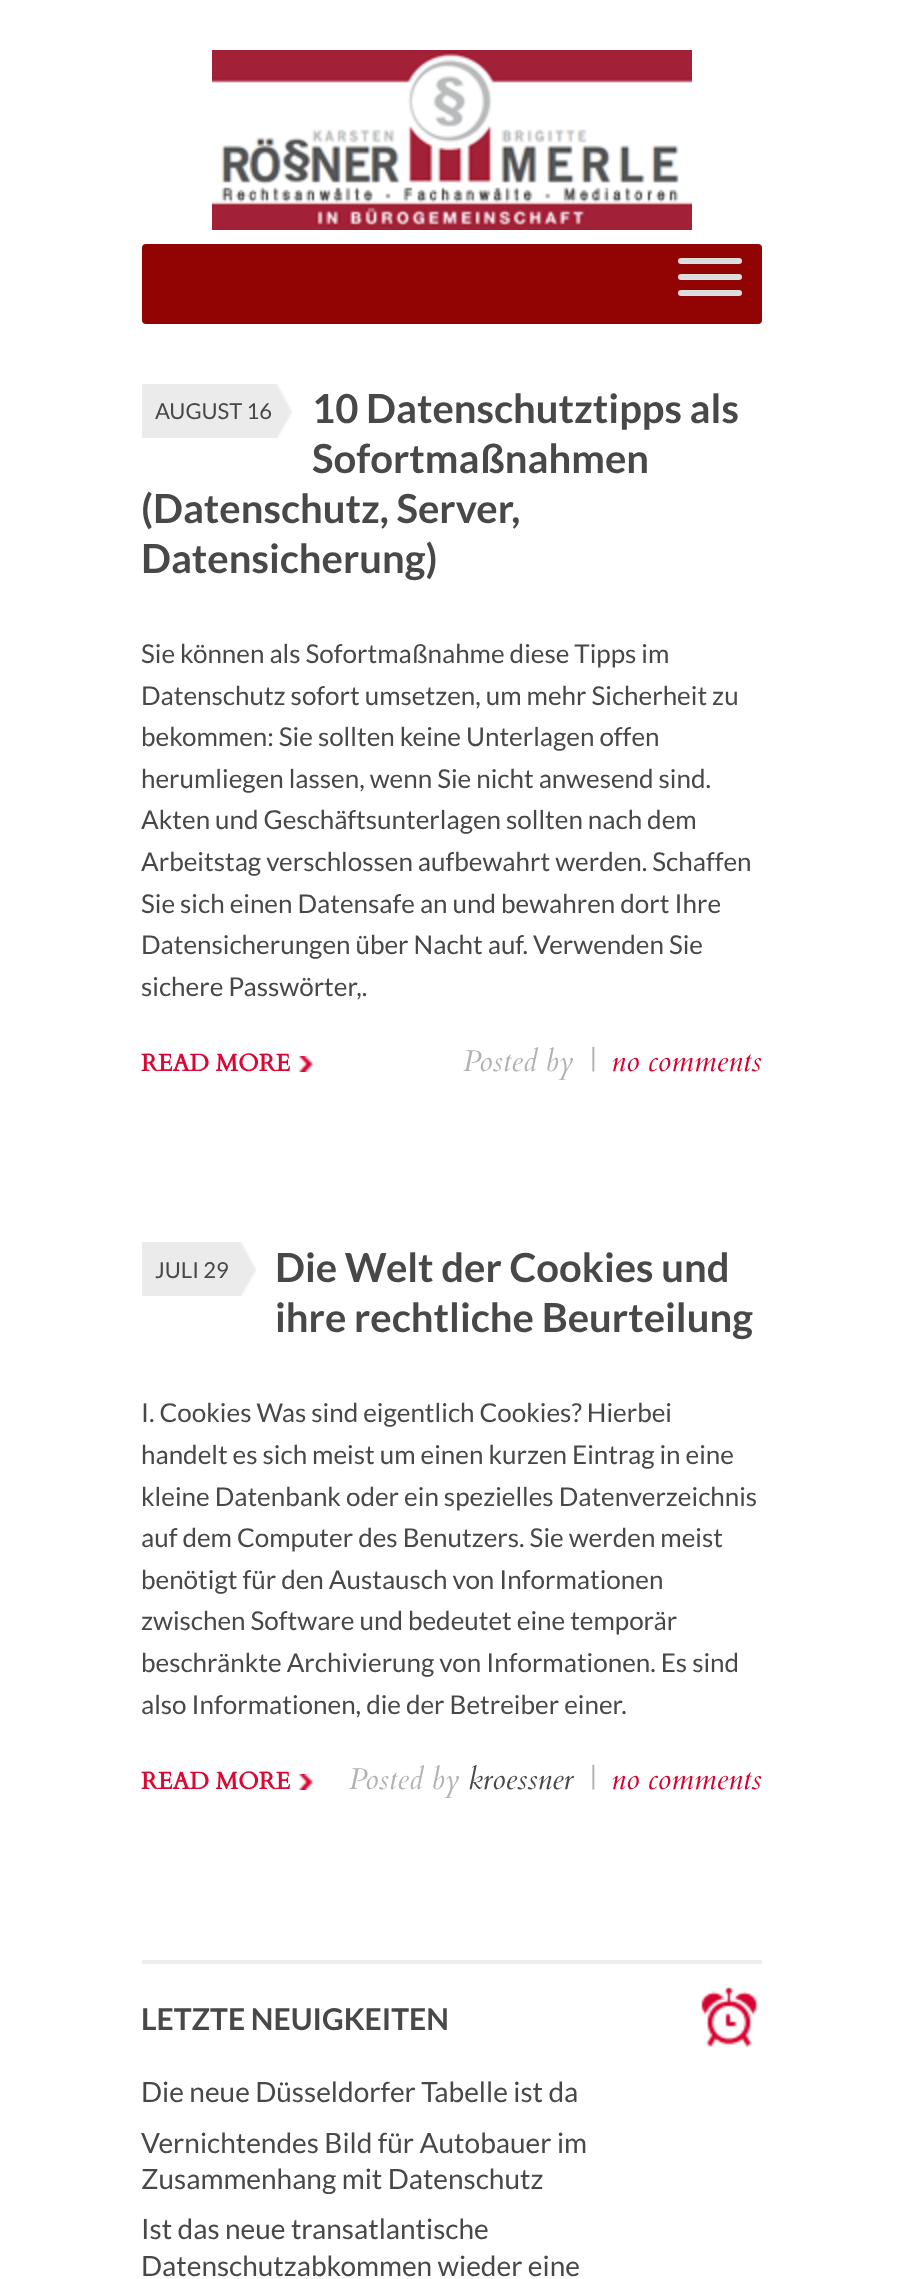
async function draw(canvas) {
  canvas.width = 902;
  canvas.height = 2279;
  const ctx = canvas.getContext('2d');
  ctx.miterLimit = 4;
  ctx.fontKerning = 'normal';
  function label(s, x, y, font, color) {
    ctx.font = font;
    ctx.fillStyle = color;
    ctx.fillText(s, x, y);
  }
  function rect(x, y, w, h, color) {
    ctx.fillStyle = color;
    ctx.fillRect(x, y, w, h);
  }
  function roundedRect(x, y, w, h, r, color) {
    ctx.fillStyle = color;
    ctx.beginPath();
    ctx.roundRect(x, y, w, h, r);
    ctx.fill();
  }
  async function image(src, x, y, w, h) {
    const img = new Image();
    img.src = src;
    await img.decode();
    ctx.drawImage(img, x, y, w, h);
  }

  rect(0, 0, 902, 2279, '#fff');
  await image('assets/img1.png', 212, 50, 480, 180);
  roundedRect(142, 244, 620, 80, 4, '#920404');
  roundedRect(678, 258, 64, 6, 3, '#ddd');
  roundedRect(678, 274, 64, 6, 3, '#ddd');
  roundedRect(678, 290, 64, 6, 3, '#ddd');
  label('10 Datenschutztipps als', 312, 423, 'bold 40px Lato', '#494849');
  label('Sofortmaßnahmen', 312, 473, 'bold 40px Lato', '#494849');
  label('(Datenschutz, Server,', 141, 523, 'bold 40px Lato', '#494849');
  label('Datensicherung)', 141, 573, 'bold 40px Lato', '#494849');
  await image('assets/img2.png', 142, 384, 150, 54);
  label('AUGUST 16', 155, 419, '22px Lato', '#494849');
  label('Sie können als Sofortmaßnahme diese Tipps im', 141, 663, '26px Lato', '#494849');
  label('Datenschutz sofort umsetzen, um mehr Sicherheit zu', 141, 705, '26px Lato', '#494849');
  label('bekommen: Sie sollten keine Unterlagen offen', 141, 746, '26px Lato', '#494849');
  label('herumliegen lassen, wenn Sie nicht anwesend sind.', 141, 788, '26px Lato', '#494849');
  label('Akten und Geschäftsunterlagen sollten nach dem', 141, 829, '26px Lato', '#494849');
  label('Arbeitstag verschlossen aufbewahrt werden. Schaffen', 141, 871, '26px Lato', '#494849');
  label('Sie sich einen Datensafe an und bewahren dort Ihre', 141, 913, '26px Lato', '#494849');
  label('Datensicherungen über Nacht auf. Verwenden Sie', 141, 954, '26px Lato', '#494849');
  label('sichere Passwörter,.', 141, 996, '26px Lato', '#494849');
  label('READ MORE', 141, 1071, 'bold 24px Cardo', '#d80935');
  await image('assets/img3.png', 298, 1056, 16, 16);
  label('Posted by', 463, 1071, 'italic 30px Cardo', '#b2b2b2');
  label('|', 588, 1071, 'italic 30px Cardo', '#b2b2b2');
  label('no comments', 611, 1071, 'italic 30px Cardo', '#d7002e');
  await image('assets/img4.png', 142, 1242, 114, 54);
  label('JULI 29', 155, 1278, '22px Lato', '#494849');
  label('Die Welt der Cookies und', 275, 1282, 'bold 40px Lato', '#494849');
  label('ihre rechtliche Beurteilung', 275, 1332, 'bold 40px Lato', '#494849');
  label('I. Cookies Was sind eigentlich Cookies? Hierbei', 141, 1422, '26px Lato', '#494849');
  label('handelt es sich meist um einen kurzen Eintrag in eine', 141, 1464, '26px Lato', '#494849');
  label('kleine Datenbank oder ein spezielles Datenverzeichnis', 141, 1506, '26px Lato', '#494849');
  label('auf dem Computer des Benutzers. Sie werden meist', 141, 1547, '26px Lato', '#494849');
  label('benötigt für den Austausch von Informationen', 141, 1589, '26px Lato', '#494849');
  label('zwischen Software und bedeutet eine temporär', 141, 1630, '26px Lato', '#494849');
  label('beschränkte Archivierung von Informationen. Es sind', 141, 1672, '26px Lato', '#494849');
  label('also Informationen, die der Betreiber einer.', 141, 1714, '26px Lato', '#494849');
  label('READ MORE', 141, 1789, 'bold 24px Cardo', '#d80935');
  await image('assets/img3.png', 298, 1774, 16, 16);
  label('Posted by', 349, 1789, 'italic 30px Cardo', '#b2b2b2');
  label('kroessner', 468, 1789, 'italic 30px Cardo', '#494849');
  label('|', 588, 1789, 'italic 30px Cardo', '#b2b2b2');
  label('no comments', 611, 1789, 'italic 30px Cardo', '#d7002e');
  rect(142, 1960, 620, 4, '#ededed');
  label('LETZTE NEUIGKEITEN', 141, 2030, 'bold 30px Lato', '#494849');
  await image('assets/img5.png', 701, 1987, 58, 60);
  label('Die neue Düsseldorfer Tabelle ist da', 141, 2102, '28px Lato', '#494849');
  label('Vernichtendes Bild für Autobauer im', 141, 2153, '28px Lato', '#494849');
  label('Zusammenhang mit Datenschutz', 141, 2189, '28px Lato', '#494849');
  label('Ist das neue transatlantische', 141, 2239, '28px Lato', '#494849');
  label('Datenschutzabkommen wieder eine', 141, 2276, '28px Lato', '#494849');
}

draw(document.querySelector('canvas'));
